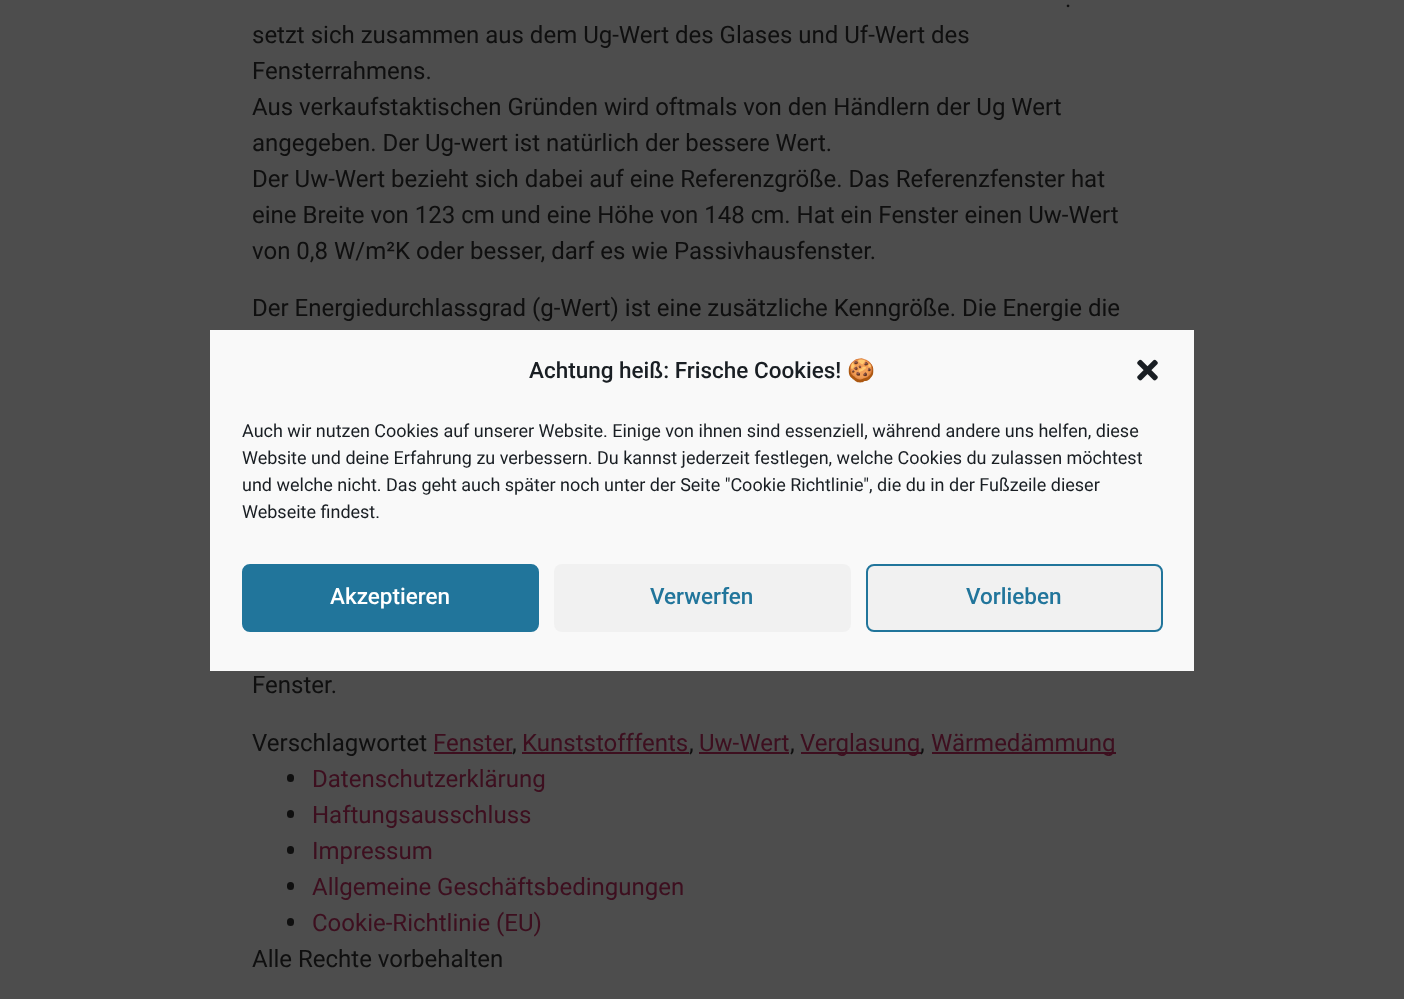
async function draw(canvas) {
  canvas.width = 1404;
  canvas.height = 999;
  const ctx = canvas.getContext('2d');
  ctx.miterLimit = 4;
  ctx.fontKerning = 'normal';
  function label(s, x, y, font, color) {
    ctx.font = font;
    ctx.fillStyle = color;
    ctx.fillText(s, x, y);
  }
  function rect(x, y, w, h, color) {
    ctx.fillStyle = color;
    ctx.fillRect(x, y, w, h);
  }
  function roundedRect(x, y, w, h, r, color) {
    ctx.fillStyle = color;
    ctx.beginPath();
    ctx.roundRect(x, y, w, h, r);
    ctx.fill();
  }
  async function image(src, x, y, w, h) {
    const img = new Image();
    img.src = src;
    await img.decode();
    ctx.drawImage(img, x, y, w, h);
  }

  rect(0, 0, 1404, 999, '#4d4d4d');
  label('.', 1065, 7, '24px Roboto', '#0f0f0f');
  label('setzt sich zusammen aus dem Ug-Wert des Glases und Uf-Wert des', 252, 43, '24px Roboto', '#0f0f0f');
  label('Fensterrahmens.', 252, 79, '24px Roboto', '#0f0f0f');
  label('Aus verkaufstaktischen Gründen wird oftmals von den Händlern der Ug Wert', 252, 115, '24px Roboto', '#0f0f0f');
  label('angegeben. Der Ug-wert ist natürlich der bessere Wert.', 252, 151, '24px Roboto', '#0f0f0f');
  label('Der Uw-Wert bezieht sich dabei auf eine Referenzgröße. Das Referenzfenster hat', 252, 187, '24px Roboto', '#0f0f0f');
  label('eine Breite von 123 cm und eine Höhe von 148 cm. Hat ein Fenster einen Uw-Wert', 252, 223, '24px Roboto', '#0f0f0f');
  label('von 0,8 W/m²K oder besser, darf es wie Passivhausfenster.', 252, 259, '24px Roboto', '#0f0f0f');
  label('Der Energiedurchlassgrad (g-Wert) ist eine zusätzliche Kenngröße. Die Energie die', 252, 316, '24px Roboto', '#0f0f0f');
  label('Fenster.', 252, 693, '24px Roboto', '#0f0f0f');
  label('Verschlagwortet', 252, 751, '24px Roboto', '#0f0f0f');
  label('Fenster', 433, 751, '24px Roboto', '#3d0f1f');
  label(',', 512, 751, '24px Roboto', '#0f0f0f');
  rect(434, 752, 78, 2, '#3d0f1f');
  label('Kunststofffents', 522, 751, '24px Roboto', '#3d0f1f');
  rect(522, 752, 167, 2, '#3d0f1f');
  label(',', 689, 751, '24px Roboto', '#0f0f0f');
  label('Uw-Wert', 699, 751, '24px Roboto', '#3d0f1f');
  label(',', 790, 751, '24px Roboto', '#0f0f0f');
  rect(699, 752, 90, 2, '#3d0f1f');
  rect(801, 752, 120, 2, '#3d0f1f');
  label('Verglasung', 800, 751, '24px Roboto', '#3d0f1f');
  label(',', 920, 751, '24px Roboto', '#0f0f0f');
  rect(932, 752, 184, 2, '#3d0f1f');
  label('Wärmedämmung', 931, 751, '24px Roboto', '#3d0f1f');
  rect(210, 330, 984, 341, '#f9f9f9');
  label('Achtung heiß: Frische Cookies!', 529, 378, '500 22.5px Roboto', '#191e23');
  label('🍪', 847, 378, '22.5px Noto Color Emoji', '#191e23');
  await image('assets/img1.png', 1137, 359, 21, 22);
  label('Auch wir nutzen Cookies auf unserer Website. Einige von ihnen sind essenziell, während andere uns helfen, diese', 242, 437, '18px Roboto', '#191e23');
  label('Website und deine Erfahrung zu verbessern. Du kannst jederzeit festlegen, welche Cookies du zulassen möchtest', 242, 464, '18px Roboto', '#191e23');
  label('und welche nicht. Das geht auch später noch unter der Seite "Cookie Richtlinie", die du in der Fußzeile dieser', 242, 491, '18px Roboto', '#191e23');
  label('Webseite findest.', 242, 518, '18px Roboto', '#191e23');
  ctx.fillStyle = '#21759b';
  ctx.beginPath();
  ctx.roundRect(243, 565, 295, 66, 7);
  ctx.fill();
  ctx.strokeStyle = '#21759b';
  ctx.lineWidth = 2;
  ctx.stroke();
  label('Akzeptieren', 330, 604, '500 22.5px Roboto', '#fff');
  roundedRect(554, 564, 297, 68, 8, '#f1f1f1');
  label('Verwerfen', 650, 604, '500 22.5px Roboto', '#21759b');
  ctx.fillStyle = '#f1f1f1';
  ctx.beginPath();
  ctx.roundRect(867, 565, 295, 66, 7);
  ctx.fill();
  ctx.stroke();
  label('Vorlieben', 966, 604, '500 22.5px Roboto', '#21759b');
  roundedRect(287, 774, 7, 8, 3.5, '#0f0f0f');
  label('Datenschutzerklärung', 312, 787, '24px Roboto', '#3d0f1f');
  roundedRect(287, 810, 7, 8, 3.5, '#0f0f0f');
  label('Haftungsausschluss', 312, 823, '24px Roboto', '#3d0f1f');
  roundedRect(287, 846, 7, 8, 3.5, '#0f0f0f');
  label('Impressum', 312, 859, '24px Roboto', '#3d0f1f');
  roundedRect(287, 882, 7, 8, 3.5, '#0f0f0f');
  label('Allgemeine Geschäftsbedingungen', 312, 895, '24px Roboto', '#3d0f1f');
  roundedRect(287, 918, 7, 8, 3.5, '#0f0f0f');
  label('Cookie-Richtlinie (EU)', 312, 931, '24px Roboto', '#3d0f1f');
  label('Alle Rechte vorbehalten', 252, 967, '24px Roboto', '#0f0f0f');
}

draw(document.querySelector('canvas'));
